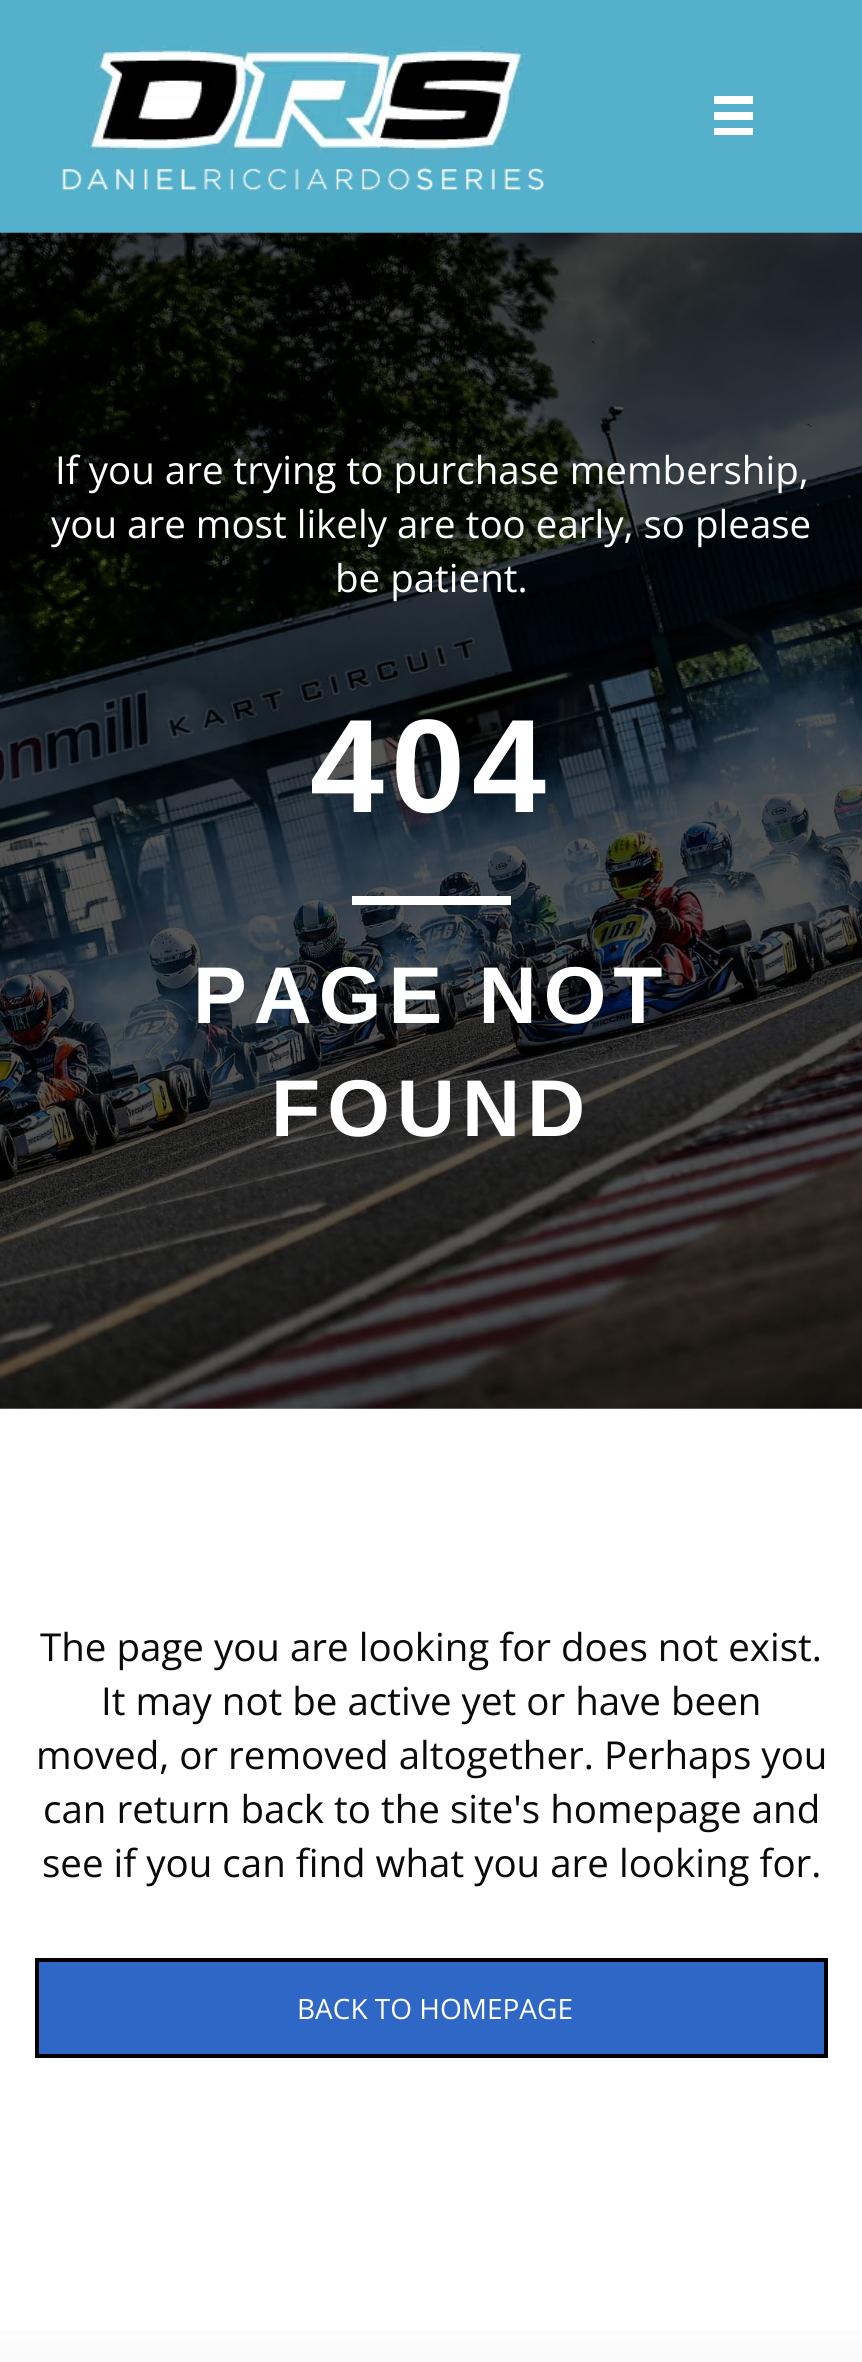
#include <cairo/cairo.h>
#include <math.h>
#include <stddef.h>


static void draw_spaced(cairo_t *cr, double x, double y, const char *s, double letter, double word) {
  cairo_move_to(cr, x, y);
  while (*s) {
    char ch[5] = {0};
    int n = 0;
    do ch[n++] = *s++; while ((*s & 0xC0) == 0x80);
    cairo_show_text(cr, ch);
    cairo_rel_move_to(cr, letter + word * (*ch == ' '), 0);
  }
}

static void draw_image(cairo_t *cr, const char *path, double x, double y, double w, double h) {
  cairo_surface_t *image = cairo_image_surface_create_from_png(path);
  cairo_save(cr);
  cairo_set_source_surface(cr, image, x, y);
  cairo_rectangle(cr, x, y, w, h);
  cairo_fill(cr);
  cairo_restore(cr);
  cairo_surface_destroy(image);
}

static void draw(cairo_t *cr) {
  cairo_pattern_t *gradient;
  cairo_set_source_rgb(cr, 1, 1, 1);
  cairo_paint(cr);
  cairo_set_source_rgb(cr, 85 / 255.0, 176 / 255.0, 203 / 255.0);
  cairo_rectangle(cr, 0, 0, 862, 233);
  cairo_fill(cr);
  draw_image(cr, "images/1.png", 62, 46, 482, 145);
  cairo_set_source_rgb(cr, 1, 1, 1);
  cairo_rectangle(cr, 714, 96, 39, 8);
  cairo_fill(cr);
  cairo_rectangle(cr, 714, 112, 39, 8);
  cairo_fill(cr);
  cairo_rectangle(cr, 714, 128, 39, 7);
  cairo_fill(cr);
  draw_image(cr, "images/2.png", 0, 232, 862, 1177);
  cairo_rectangle(cr, 352, 896, 159, 9);
  cairo_fill(cr);
  cairo_set_source_rgb(cr, 47 / 255.0, 103 / 255.0, 198 / 255.0);
  cairo_rectangle(cr, 37, 1960, 789, 96);
  cairo_fill_preserve(cr);
  cairo_set_source_rgb(cr, 0, 0, 0);
  cairo_set_line_width(cr, 4);
  cairo_stroke(cr);
  gradient = cairo_pattern_create_linear(431, 2303, 431, 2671);
  cairo_pattern_add_color_stop_rgba(gradient, 0, 1, 1, 1, 1);
  cairo_pattern_add_color_stop_rgba(gradient, 1, 221 / 255.0, 221 / 255.0, 221 / 255.0, 1);
  cairo_set_source(cr, gradient);
  cairo_pattern_destroy(gradient);
  cairo_rectangle(cr, 0, 2330, 862, 32);
  cairo_fill(cr);
  cairo_select_font_face(cr, "Open Sans", CAIRO_FONT_SLANT_NORMAL, CAIRO_FONT_WEIGHT_NORMAL);
  cairo_set_font_size(cr, 38.5);
  cairo_set_source_rgb(cr, 1, 1, 1);
  cairo_move_to(cr, 55, 484);
  cairo_show_text(cr, "If you are trying to purchase membership,");
  cairo_move_to(cr, 51, 538);
  cairo_show_text(cr, "you are most likely are too early, so please");
  cairo_move_to(cr, 335, 592);
  cairo_show_text(cr, "be patient.");
  cairo_select_font_face(cr, "Liberation Sans", CAIRO_FONT_SLANT_NORMAL, CAIRO_FONT_WEIGHT_BOLD);
  cairo_set_font_size(cr, 133);
  draw_spaced(cr, 310, 812, "404", 7, 0);
  cairo_set_font_size(cr, 80.5);
  draw_spaced(cr, 193, 1023, "PAGE NOT", 7, 0);
  draw_spaced(cr, 271, 1136, "FOUND", 7, 0);
  cairo_select_font_face(cr, "Open Sans", CAIRO_FONT_SLANT_NORMAL, CAIRO_FONT_WEIGHT_NORMAL);
  cairo_set_font_size(cr, 38.5);
  cairo_set_source_rgb(cr, 10 / 255.0, 10 / 255.0, 10 / 255.0);
  cairo_move_to(cr, 40, 1661);
  cairo_show_text(cr, "The page you are looking for does not exist.");
  cairo_move_to(cr, 101, 1715);
  cairo_show_text(cr, "It may not be active yet or have been");
  cairo_move_to(cr, 36, 1769);
  cairo_show_text(cr, "moved, or removed altogether. Perhaps you");
  cairo_move_to(cr, 43, 1823);
  cairo_show_text(cr, "can return back to the site's homepage and");
  cairo_move_to(cr, 42, 1877);
  cairo_show_text(cr, "see if you can find what you are looking for.");
  cairo_set_font_size(cr, 28);
  cairo_set_source_rgb(cr, 1, 1, 1);
  cairo_move_to(cr, 297, 2019);
  cairo_show_text(cr, "BACK TO HOMEPAGE");
}

int main(void) {
  cairo_surface_t *surface = cairo_image_surface_create(CAIRO_FORMAT_RGB24, 862, 2362);
  cairo_t *cr = cairo_create(surface);
  cairo_font_options_t *options = cairo_font_options_create();
  cairo_font_options_set_hint_metrics(options, CAIRO_HINT_METRICS_OFF);
  cairo_font_options_set_hint_style(options, CAIRO_HINT_STYLE_NONE);
  cairo_set_font_options(cr, options);
  cairo_set_miter_limit(cr, 4);
  draw(cr);
  cairo_surface_write_to_png(surface, "out.png");
  cairo_font_options_destroy(options);
  cairo_destroy(cr);
  cairo_surface_destroy(surface);
  return 0;
}
